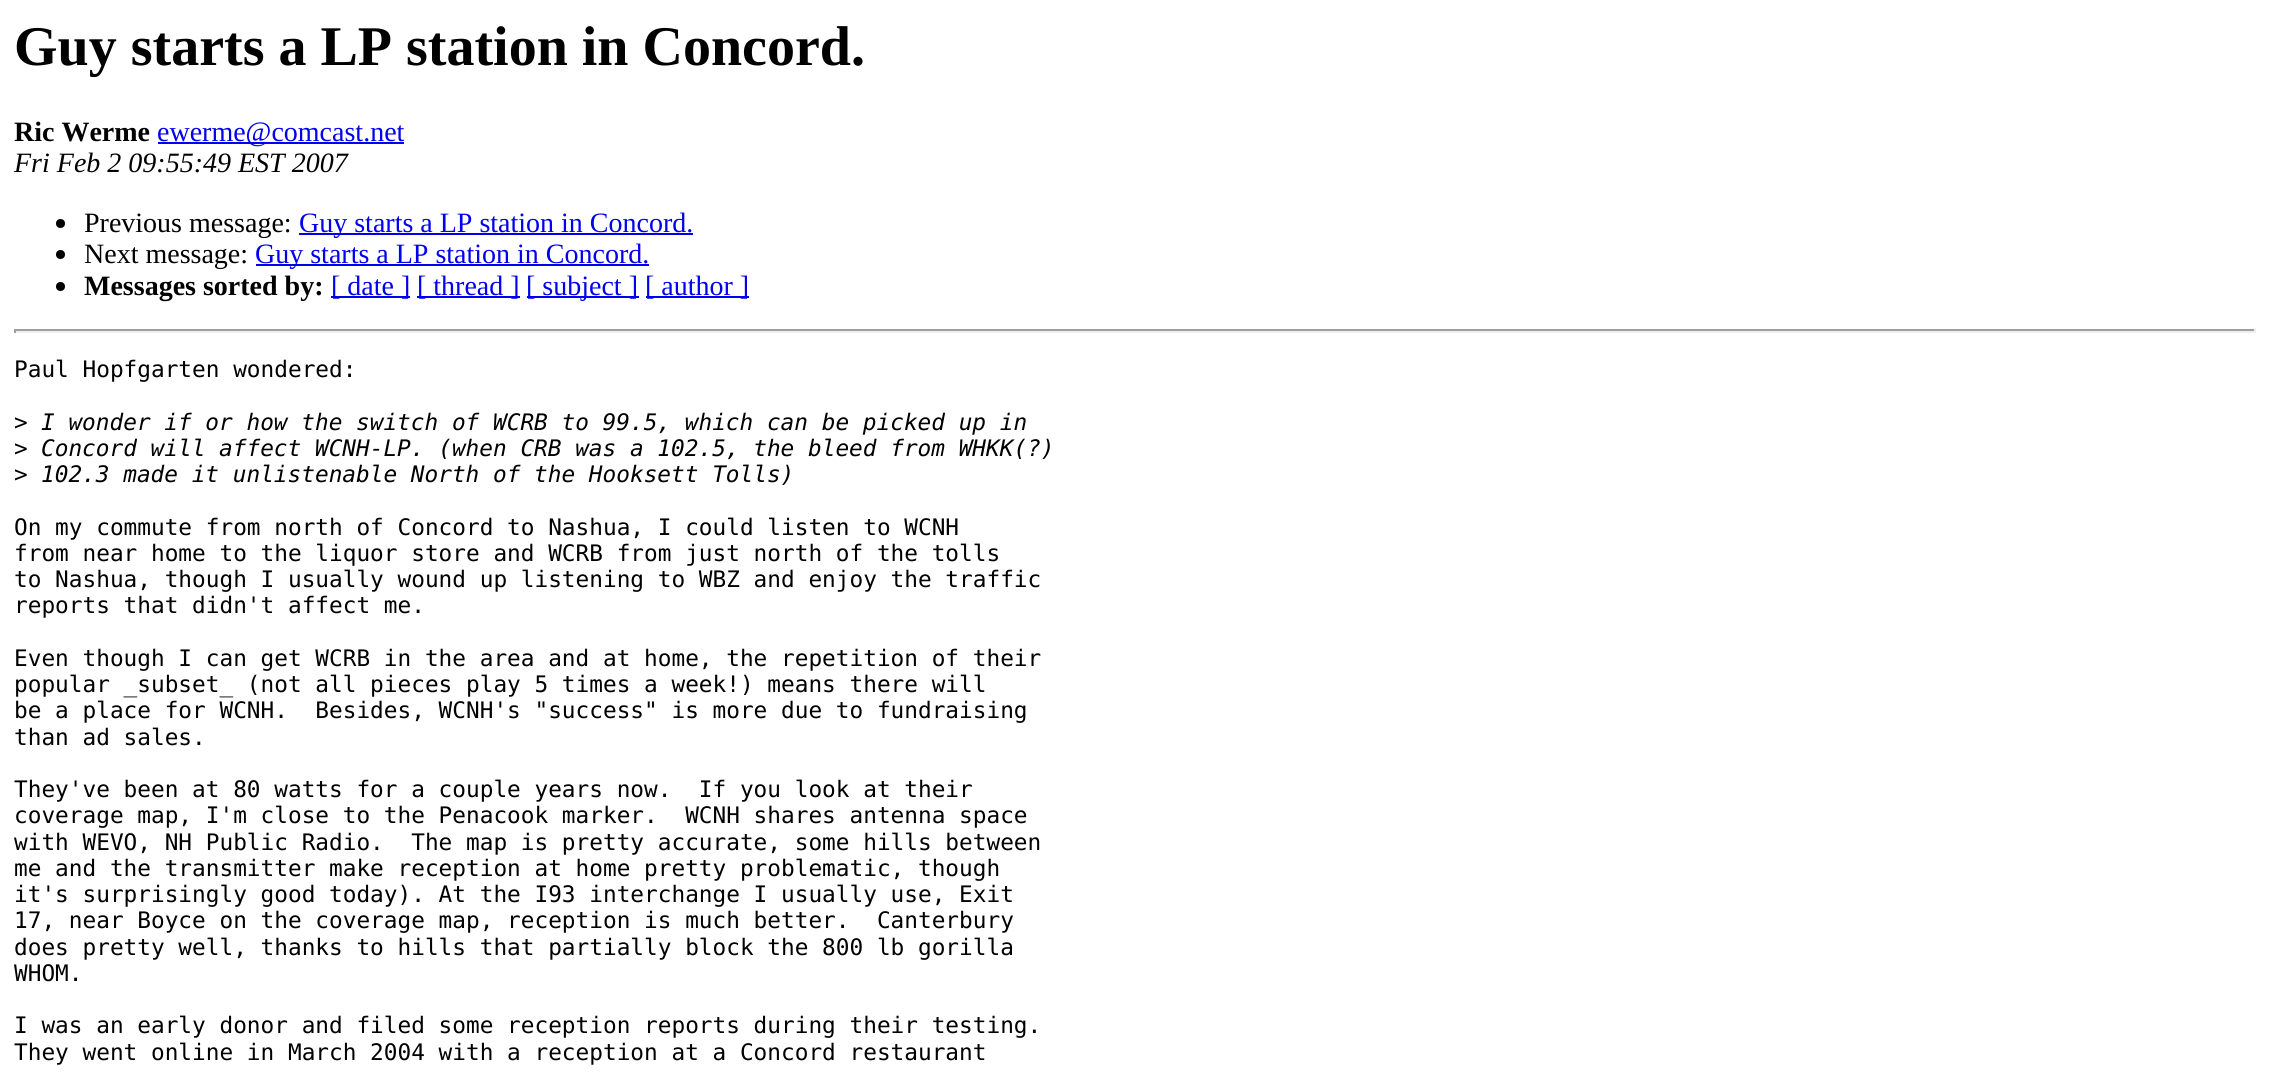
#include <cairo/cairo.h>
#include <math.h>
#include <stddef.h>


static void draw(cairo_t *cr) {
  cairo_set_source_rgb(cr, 1, 1, 1);
  cairo_paint(cr);
  cairo_set_source_rgb(cr, 0, 0, 238 / 255.0);
  cairo_rectangle(cr, 158, 142, 246, 2);
  cairo_fill(cr);
  cairo_set_source_rgb(cr, 0, 0, 0);
  cairo_arc(cr, 60.5, 223.5, 4.5, 0, 2 * M_PI);
  cairo_fill(cr);
  cairo_set_source_rgb(cr, 0, 0, 238 / 255.0);
  cairo_rectangle(cr, 299, 233, 394, 2);
  cairo_fill(cr);
  cairo_set_source_rgb(cr, 0, 0, 0);
  cairo_arc(cr, 60.5, 254.5, 4.5, 0, 2 * M_PI);
  cairo_fill(cr);
  cairo_set_source_rgb(cr, 0, 0, 238 / 255.0);
  cairo_rectangle(cr, 256, 264, 393, 2);
  cairo_fill(cr);
  cairo_set_source_rgb(cr, 0, 0, 0);
  cairo_arc(cr, 60.5, 286.5, 4.5, 0, 2 * M_PI);
  cairo_fill(cr);
  cairo_set_source_rgb(cr, 0, 0, 238 / 255.0);
  cairo_rectangle(cr, 331, 296, 79, 2);
  cairo_fill(cr);
  cairo_rectangle(cr, 417, 296, 103, 2);
  cairo_fill(cr);
  cairo_rectangle(cr, 527, 296, 112, 2);
  cairo_fill(cr);
  cairo_rectangle(cr, 646, 296, 103, 2);
  cairo_fill(cr);
  cairo_set_source_rgb(cr, 159 / 255.0, 159 / 255.0, 159 / 255.0);
  cairo_rectangle(cr, 14, 329, 2242, 2);
  cairo_fill(cr);
  cairo_set_source_rgb(cr, 238 / 255.0, 238 / 255.0, 238 / 255.0);
  cairo_rectangle(cr, 2254, 329, 2, 4);
  cairo_fill(cr);
  cairo_rectangle(cr, 14, 331, 2242, 2);
  cairo_fill(cr);
  cairo_set_source_rgb(cr, 159 / 255.0, 159 / 255.0, 159 / 255.0);
  cairo_rectangle(cr, 14, 329, 2, 4);
  cairo_fill(cr);
  cairo_select_font_face(cr, "Liberation Serif", CAIRO_FONT_SLANT_NORMAL, CAIRO_FONT_WEIGHT_BOLD);
  cairo_set_font_size(cr, 56);
  cairo_set_source_rgb(cr, 0, 0, 0);
  cairo_move_to(cr, 14, 65);
  cairo_show_text(cr, "Guy starts a LP station in Concord.");
  cairo_set_font_size(cr, 28);
  cairo_move_to(cr, 14, 141);
  cairo_show_text(cr, "Ric Werme");
  cairo_select_font_face(cr, "Liberation Serif", CAIRO_FONT_SLANT_NORMAL, CAIRO_FONT_WEIGHT_NORMAL);
  cairo_set_source_rgb(cr, 0, 0, 238 / 255.0);
  cairo_move_to(cr, 157, 141);
  cairo_show_text(cr, "ewerme@comcast.net");
  cairo_select_font_face(cr, "Liberation Serif", CAIRO_FONT_SLANT_ITALIC, CAIRO_FONT_WEIGHT_NORMAL);
  cairo_set_source_rgb(cr, 0, 0, 0);
  cairo_move_to(cr, 14, 172);
  cairo_show_text(cr, "Fri Feb 2 09:55:49 EST 2007");
  cairo_select_font_face(cr, "Liberation Serif", CAIRO_FONT_SLANT_NORMAL, CAIRO_FONT_WEIGHT_NORMAL);
  cairo_move_to(cr, 84, 232);
  cairo_show_text(cr, "Previous message:");
  cairo_set_source_rgb(cr, 0, 0, 238 / 255.0);
  cairo_move_to(cr, 299, 232);
  cairo_show_text(cr, "Guy starts a LP station in Concord.");
  cairo_set_source_rgb(cr, 0, 0, 0);
  cairo_move_to(cr, 84, 263);
  cairo_show_text(cr, "Next message:");
  cairo_set_source_rgb(cr, 0, 0, 238 / 255.0);
  cairo_move_to(cr, 255, 263);
  cairo_show_text(cr, "Guy starts a LP station in Concord.");
  cairo_select_font_face(cr, "Liberation Serif", CAIRO_FONT_SLANT_NORMAL, CAIRO_FONT_WEIGHT_BOLD);
  cairo_set_source_rgb(cr, 0, 0, 0);
  cairo_move_to(cr, 84, 295);
  cairo_show_text(cr, "Messages sorted by:");
  cairo_select_font_face(cr, "Liberation Serif", CAIRO_FONT_SLANT_NORMAL, CAIRO_FONT_WEIGHT_NORMAL);
  cairo_set_source_rgb(cr, 0, 0, 238 / 255.0);
  cairo_move_to(cr, 331, 295);
  cairo_show_text(cr, "[ date ]");
  cairo_move_to(cr, 417, 295);
  cairo_show_text(cr, "[ thread ]");
  cairo_move_to(cr, 526, 295);
  cairo_show_text(cr, "[ subject ]");
  cairo_move_to(cr, 645, 295);
  cairo_show_text(cr, "[ author ]");
  cairo_select_font_face(cr, "DejaVu Sans Mono", CAIRO_FONT_SLANT_NORMAL, CAIRO_FONT_WEIGHT_NORMAL);
  cairo_set_font_size(cr, 22.75);
  cairo_set_source_rgb(cr, 0, 0, 0);
  cairo_move_to(cr, 14, 377);
  cairo_show_text(cr, "Paul Hopfgarten wondered:");
  cairo_move_to(cr, 14, 430);
  cairo_show_text(cr, ">");
  cairo_select_font_face(cr, "DejaVu Sans Mono", CAIRO_FONT_SLANT_ITALIC, CAIRO_FONT_WEIGHT_NORMAL);
  cairo_move_to(cr, 41, 430);
  cairo_show_text(cr, "I wonder if or how the switch of WCRB to 99.5, which can be picked up in");
  cairo_select_font_face(cr, "DejaVu Sans Mono", CAIRO_FONT_SLANT_NORMAL, CAIRO_FONT_WEIGHT_NORMAL);
  cairo_move_to(cr, 14, 456);
  cairo_show_text(cr, ">");
  cairo_select_font_face(cr, "DejaVu Sans Mono", CAIRO_FONT_SLANT_ITALIC, CAIRO_FONT_WEIGHT_NORMAL);
  cairo_move_to(cr, 41, 456);
  cairo_show_text(cr, "Concord will affect WCNH-LP. (when CRB was a 102.5, the bleed from WHKK(?)");
  cairo_select_font_face(cr, "DejaVu Sans Mono", CAIRO_FONT_SLANT_NORMAL, CAIRO_FONT_WEIGHT_NORMAL);
  cairo_move_to(cr, 14, 482);
  cairo_show_text(cr, ">");
  cairo_select_font_face(cr, "DejaVu Sans Mono", CAIRO_FONT_SLANT_ITALIC, CAIRO_FONT_WEIGHT_NORMAL);
  cairo_move_to(cr, 41, 482);
  cairo_show_text(cr, "102.3 made it unlistenable North of the Hooksett Tolls)");
  cairo_select_font_face(cr, "DejaVu Sans Mono", CAIRO_FONT_SLANT_NORMAL, CAIRO_FONT_WEIGHT_NORMAL);
  cairo_move_to(cr, 14, 535);
  cairo_show_text(cr, "On my commute from north of Concord to Nashua, I could listen to WCNH");
  cairo_move_to(cr, 14, 561);
  cairo_show_text(cr, "from near home to the liquor store and WCRB from just north of the tolls");
  cairo_move_to(cr, 14, 587);
  cairo_show_text(cr, "to Nashua, though I usually wound up listening to WBZ and enjoy the traffic");
  cairo_move_to(cr, 14, 613);
  cairo_show_text(cr, "reports that didn't affect me.");
  cairo_move_to(cr, 14, 666);
  cairo_show_text(cr, "Even though I can get WCRB in the area and at home, the repetition of their");
  cairo_move_to(cr, 14, 692);
  cairo_show_text(cr, "popular _subset_ (not all pieces play 5 times a week!) means there will");
  cairo_move_to(cr, 14, 718);
  cairo_show_text(cr, "be a place for WCNH.  Besides, WCNH's \"success\" is more due to fundraising");
  cairo_move_to(cr, 14, 745);
  cairo_show_text(cr, "than ad sales.");
  cairo_move_to(cr, 14, 797);
  cairo_show_text(cr, "They've been at 80 watts for a couple years now.  If you look at their");
  cairo_move_to(cr, 14, 823);
  cairo_show_text(cr, "coverage map, I'm close to the Penacook marker.  WCNH shares antenna space");
  cairo_move_to(cr, 14, 850);
  cairo_show_text(cr, "with WEVO, NH Public Radio.  The map is pretty accurate, some hills between");
  cairo_move_to(cr, 14, 876);
  cairo_show_text(cr, "me and the transmitter make reception at home pretty problematic, though");
  cairo_move_to(cr, 14, 902);
  cairo_show_text(cr, "it's surprisingly good today). At the I93 interchange I usually use, Exit");
  cairo_move_to(cr, 14, 928);
  cairo_show_text(cr, "17, near Boyce on the coverage map, reception is much better.  Canterbury");
  cairo_move_to(cr, 14, 955);
  cairo_show_text(cr, "does pretty well, thanks to hills that partially block the 800 lb gorilla");
  cairo_move_to(cr, 14, 981);
  cairo_show_text(cr, "WHOM.");
  cairo_move_to(cr, 14, 1033);
  cairo_show_text(cr, "I was an early donor and filed some reception reports during their testing.");
  cairo_move_to(cr, 14, 1060);
  cairo_show_text(cr, "They went online in March 2004 with a reception at a Concord restaurant");
}

int main(void) {
  cairo_surface_t *surface = cairo_image_surface_create(CAIRO_FORMAT_RGB24, 2269, 1075);
  cairo_t *cr = cairo_create(surface);
  cairo_font_options_t *options = cairo_font_options_create();
  cairo_font_options_set_hint_metrics(options, CAIRO_HINT_METRICS_OFF);
  cairo_font_options_set_hint_style(options, CAIRO_HINT_STYLE_NONE);
  cairo_set_font_options(cr, options);
  cairo_set_miter_limit(cr, 4);
  draw(cr);
  cairo_surface_write_to_png(surface, "out.png");
  cairo_font_options_destroy(options);
  cairo_destroy(cr);
  cairo_surface_destroy(surface);
  return 0;
}
